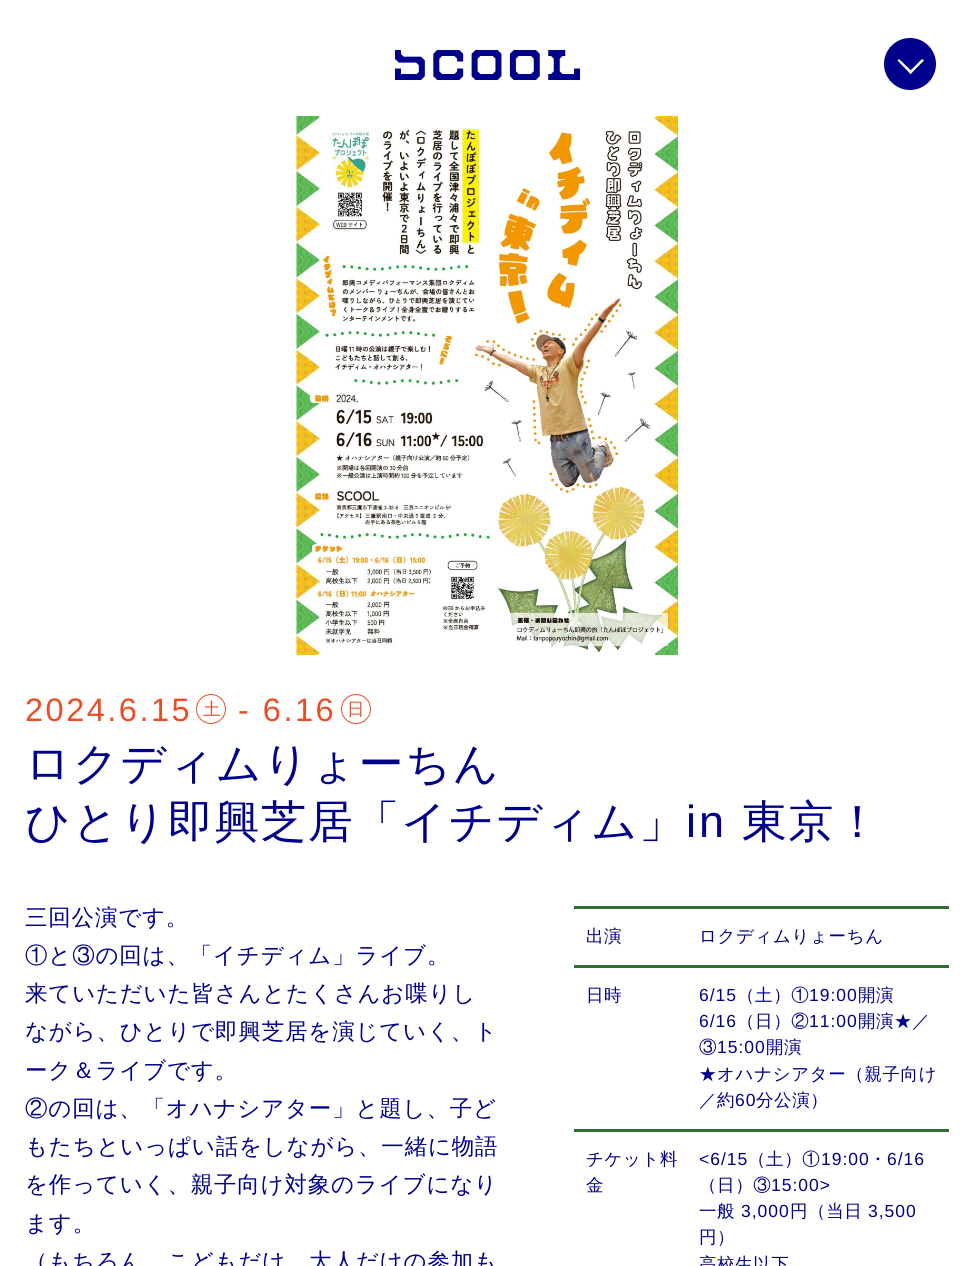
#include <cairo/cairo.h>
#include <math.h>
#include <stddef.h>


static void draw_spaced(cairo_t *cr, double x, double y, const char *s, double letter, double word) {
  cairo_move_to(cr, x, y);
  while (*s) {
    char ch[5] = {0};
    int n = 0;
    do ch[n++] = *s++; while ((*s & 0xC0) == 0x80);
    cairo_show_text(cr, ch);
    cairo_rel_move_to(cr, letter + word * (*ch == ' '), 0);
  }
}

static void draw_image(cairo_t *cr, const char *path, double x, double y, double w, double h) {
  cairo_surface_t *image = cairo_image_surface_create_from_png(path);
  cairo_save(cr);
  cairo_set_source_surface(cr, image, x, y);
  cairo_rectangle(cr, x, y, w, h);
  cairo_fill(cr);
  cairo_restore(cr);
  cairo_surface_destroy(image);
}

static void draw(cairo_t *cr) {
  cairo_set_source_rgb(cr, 1, 1, 1);
  cairo_paint(cr);
  draw_image(cr, "images/1.png", 395, 50, 185, 30);
  cairo_set_source_rgb(cr, 0, 0, 138 / 255.0);
  cairo_arc(cr, 910, 64, 26, 0, 2 * M_PI);
  cairo_fill(cr);
  cairo_set_source_rgb(cr, 1, 1, 1);
  cairo_new_path(cr);
  cairo_move_to(cr, 922, 59);
  cairo_line_to(cr, 924, 60.5);
  cairo_line_to(cr, 910.5, 74);
  cairo_line_to(cr, 909, 72);
  cairo_close_path(cr);
  cairo_fill(cr);
  cairo_new_path(cr);
  cairo_move_to(cr, 899, 59);
  cairo_line_to(cr, 912.5, 72);
  cairo_line_to(cr, 910.5, 74);
  cairo_line_to(cr, 897.5, 60.5);
  cairo_close_path(cr);
  cairo_fill(cr);
  draw_image(cr, "images/2.png", 296, 116, 382, 540);
  cairo_arc(cr, 211, 709, 14.5, 0, 2 * M_PI);
  cairo_set_source_rgb(cr, 235 / 255.0, 78 / 255.0, 39 / 255.0);
  cairo_set_line_width(cr, 1);
  cairo_stroke(cr);
  cairo_arc(cr, 356, 709, 14.5, 0, 2 * M_PI);
  cairo_stroke(cr);
  cairo_set_source_rgb(cr, 47 / 255.0, 110 / 255.0, 51 / 255.0);
  cairo_rectangle(cr, 574, 906, 375, 3);
  cairo_fill(cr);
  cairo_rectangle(cr, 574, 965, 375, 3);
  cairo_fill(cr);
  cairo_rectangle(cr, 574, 1129, 375, 3);
  cairo_fill(cr);
  cairo_select_font_face(cr, "Liberation Sans", CAIRO_FONT_SLANT_NORMAL, CAIRO_FONT_WEIGHT_NORMAL);
  cairo_set_font_size(cr, 32.5);
  cairo_set_source_rgb(cr, 235 / 255.0, 78 / 255.0, 39 / 255.0);
  draw_spaced(cr, 25, 721, "2024.6.15", 2.5, 0);
  cairo_select_font_face(cr, "WenQuanYi Zen Hei Medium", CAIRO_FONT_SLANT_NORMAL, CAIRO_FONT_WEIGHT_NORMAL);
  cairo_set_font_size(cr, 17.5);
  draw_spaced(cr, 203, 715, "土", 1, 0);
  cairo_select_font_face(cr, "Liberation Sans", CAIRO_FONT_SLANT_NORMAL, CAIRO_FONT_WEIGHT_NORMAL);
  cairo_set_font_size(cr, 32.5);
  draw_spaced(cr, 238, 721, "- 6.16", 2.5, 0);
  cairo_select_font_face(cr, "WenQuanYi Zen Hei Medium", CAIRO_FONT_SLANT_NORMAL, CAIRO_FONT_WEIGHT_NORMAL);
  cairo_set_font_size(cr, 17.5);
  draw_spaced(cr, 347, 715, "日", 1, 0);
  cairo_set_font_size(cr, 45);
  cairo_set_source_rgb(cr, 0, 0, 138 / 255.0);
  draw_spaced(cr, 25, 779, "ロクディムりょーちん", 1.6, 0);
  draw_spaced(cr, 25, 837, "ひとり即興芝居「イチディム」", 1.6, 0);
  cairo_select_font_face(cr, "Liberation Sans", CAIRO_FONT_SLANT_NORMAL, CAIRO_FONT_WEIGHT_NORMAL);
  draw_spaced(cr, 686, 837, "in", 3, 0);
  cairo_select_font_face(cr, "WenQuanYi Zen Hei Medium", CAIRO_FONT_SLANT_NORMAL, CAIRO_FONT_WEIGHT_NORMAL);
  draw_spaced(cr, 742, 837, "東京！", 1.5, 0);
  cairo_set_font_size(cr, 22.5);
  draw_spaced(cr, 25, 925, "三回公演です。", 0.8, 0);
  draw_spaced(cr, 25, 963, "①と③の回は、「イチディム」ライブ。", 0.8, 0);
  draw_spaced(cr, 25, 1001, "来ていただいた皆さんとたくさんお喋りし", 0.8, 0);
  draw_spaced(cr, 25, 1039, "ながら、ひとりで即興芝居を演じていく、ト", 0.8, 0);
  draw_spaced(cr, 25, 1078, "ーク＆ライブです。", 0.8, 0);
  draw_spaced(cr, 25, 1116, "②の回は、「オハナシアター」と題し、子ど", 0.8, 0);
  draw_spaced(cr, 25, 1154, "もたちといっぱい話をしながら、一緒に物語", 0.8, 0);
  draw_spaced(cr, 25, 1192, "を作っていく、親子向け対象のライブになり", 0.8, 0);
  draw_spaced(cr, 25, 1231, "ます。", 0.8, 0);
  draw_spaced(cr, 25, 1269, "（もちろん、こどもだけ、大人だけの参加も", 0.8, 0);
  cairo_set_font_size(cr, 17.5);
  draw_spaced(cr, 586, 942, "出演", 0.6, 0);
  draw_spaced(cr, 699, 942, "ロクディムりょーちん", 0.6, 0);
  draw_spaced(cr, 586, 1001, "日時", 0.6, 0);
  cairo_select_font_face(cr, "Liberation Sans", CAIRO_FONT_SLANT_NORMAL, CAIRO_FONT_WEIGHT_NORMAL);
  draw_spaced(cr, 699, 1001, "6/15", 1, 0);
  cairo_select_font_face(cr, "WenQuanYi Zen Hei Medium", CAIRO_FONT_SLANT_NORMAL, CAIRO_FONT_WEIGHT_NORMAL);
  draw_spaced(cr, 737, 1001, "（土）①", 0.6, 0);
  cairo_select_font_face(cr, "Liberation Sans", CAIRO_FONT_SLANT_NORMAL, CAIRO_FONT_WEIGHT_NORMAL);
  draw_spaced(cr, 809, 1001, "19:00", 1, 0);
  cairo_select_font_face(cr, "WenQuanYi Zen Hei Medium", CAIRO_FONT_SLANT_NORMAL, CAIRO_FONT_WEIGHT_NORMAL);
  draw_spaced(cr, 858, 1001, "開演", 0.6, 0);
  cairo_select_font_face(cr, "Liberation Sans", CAIRO_FONT_SLANT_NORMAL, CAIRO_FONT_WEIGHT_NORMAL);
  draw_spaced(cr, 699, 1027, "6/16", 1, 0);
  cairo_select_font_face(cr, "WenQuanYi Zen Hei Medium", CAIRO_FONT_SLANT_NORMAL, CAIRO_FONT_WEIGHT_NORMAL);
  draw_spaced(cr, 737, 1027, "（日）②", 0.6, 0);
  cairo_select_font_face(cr, "Liberation Sans", CAIRO_FONT_SLANT_NORMAL, CAIRO_FONT_WEIGHT_NORMAL);
  draw_spaced(cr, 809, 1027, "11:00", 1, 0);
  cairo_select_font_face(cr, "WenQuanYi Zen Hei Medium", CAIRO_FONT_SLANT_NORMAL, CAIRO_FONT_WEIGHT_NORMAL);
  draw_spaced(cr, 858, 1027, "開演★／", 0.6, 0);
  draw_spaced(cr, 699, 1053, "③", 0.6, 0);
  cairo_select_font_face(cr, "Liberation Sans", CAIRO_FONT_SLANT_NORMAL, CAIRO_FONT_WEIGHT_NORMAL);
  draw_spaced(cr, 717, 1053, "15:00", 1, 0);
  cairo_select_font_face(cr, "WenQuanYi Zen Hei Medium", CAIRO_FONT_SLANT_NORMAL, CAIRO_FONT_WEIGHT_NORMAL);
  draw_spaced(cr, 766, 1053, "開演", 0.6, 0);
  draw_spaced(cr, 699, 1080, "★オハナシアター（親子向け", 0.6, 0);
  draw_spaced(cr, 699, 1106, "／約", 0.6, 0);
  cairo_select_font_face(cr, "Liberation Sans", CAIRO_FONT_SLANT_NORMAL, CAIRO_FONT_WEIGHT_NORMAL);
  draw_spaced(cr, 735, 1106, "60", 1, 0);
  cairo_select_font_face(cr, "WenQuanYi Zen Hei Medium", CAIRO_FONT_SLANT_NORMAL, CAIRO_FONT_WEIGHT_NORMAL);
  draw_spaced(cr, 756, 1106, "分公演）", 0.6, 0);
  draw_spaced(cr, 586, 1165, "チケット料", 0.6, 0);
  draw_spaced(cr, 586, 1191, "金", 0.6, 0);
  cairo_select_font_face(cr, "Liberation Sans", CAIRO_FONT_SLANT_NORMAL, CAIRO_FONT_WEIGHT_NORMAL);
  draw_spaced(cr, 699, 1165, "<6/15", 1, 0);
  cairo_select_font_face(cr, "WenQuanYi Zen Hei Medium", CAIRO_FONT_SLANT_NORMAL, CAIRO_FONT_WEIGHT_NORMAL);
  draw_spaced(cr, 748, 1165, "（土）①", 0.6, 0);
  cairo_select_font_face(cr, "Liberation Sans", CAIRO_FONT_SLANT_NORMAL, CAIRO_FONT_WEIGHT_NORMAL);
  draw_spaced(cr, 821, 1165, "19:00", 1, 0);
  cairo_select_font_face(cr, "WenQuanYi Zen Hei Medium", CAIRO_FONT_SLANT_NORMAL, CAIRO_FONT_WEIGHT_NORMAL);
  draw_spaced(cr, 869, 1165, "・", 0.6, 0);
  cairo_select_font_face(cr, "Liberation Sans", CAIRO_FONT_SLANT_NORMAL, CAIRO_FONT_WEIGHT_NORMAL);
  draw_spaced(cr, 887, 1165, "6/16", 1, 0);
  cairo_select_font_face(cr, "WenQuanYi Zen Hei Medium", CAIRO_FONT_SLANT_NORMAL, CAIRO_FONT_WEIGHT_NORMAL);
  draw_spaced(cr, 699, 1191, "（日）③", 0.6, 0);
  cairo_select_font_face(cr, "Liberation Sans", CAIRO_FONT_SLANT_NORMAL, CAIRO_FONT_WEIGHT_NORMAL);
  draw_spaced(cr, 771, 1191, "15:00>", 1, 0);
  cairo_select_font_face(cr, "WenQuanYi Zen Hei Medium", CAIRO_FONT_SLANT_NORMAL, CAIRO_FONT_WEIGHT_NORMAL);
  draw_spaced(cr, 699, 1217, "一般", 0.6, 0);
  cairo_select_font_face(cr, "Liberation Sans", CAIRO_FONT_SLANT_NORMAL, CAIRO_FONT_WEIGHT_NORMAL);
  draw_spaced(cr, 741, 1217, "3,000", 1, 0);
  cairo_select_font_face(cr, "WenQuanYi Zen Hei Medium", CAIRO_FONT_SLANT_NORMAL, CAIRO_FONT_WEIGHT_NORMAL);
  draw_spaced(cr, 790, 1217, "円（当日", 0.6, 0);
  cairo_select_font_face(cr, "Liberation Sans", CAIRO_FONT_SLANT_NORMAL, CAIRO_FONT_WEIGHT_NORMAL);
  draw_spaced(cr, 868, 1217, "3,500", 1, 0);
  cairo_select_font_face(cr, "WenQuanYi Zen Hei Medium", CAIRO_FONT_SLANT_NORMAL, CAIRO_FONT_WEIGHT_NORMAL);
  draw_spaced(cr, 699, 1243, "円）", 0.6, 0);
  draw_spaced(cr, 699, 1270, "高校生以下", 0.6, 0);
}

int main(void) {
  cairo_surface_t *surface = cairo_image_surface_create(CAIRO_FORMAT_RGB24, 973, 1266);
  cairo_t *cr = cairo_create(surface);
  cairo_font_options_t *options = cairo_font_options_create();
  cairo_font_options_set_hint_metrics(options, CAIRO_HINT_METRICS_OFF);
  cairo_font_options_set_hint_style(options, CAIRO_HINT_STYLE_NONE);
  cairo_set_font_options(cr, options);
  cairo_set_miter_limit(cr, 4);
  draw(cr);
  cairo_surface_write_to_png(surface, "out.png");
  cairo_font_options_destroy(options);
  cairo_destroy(cr);
  cairo_surface_destroy(surface);
  return 0;
}
